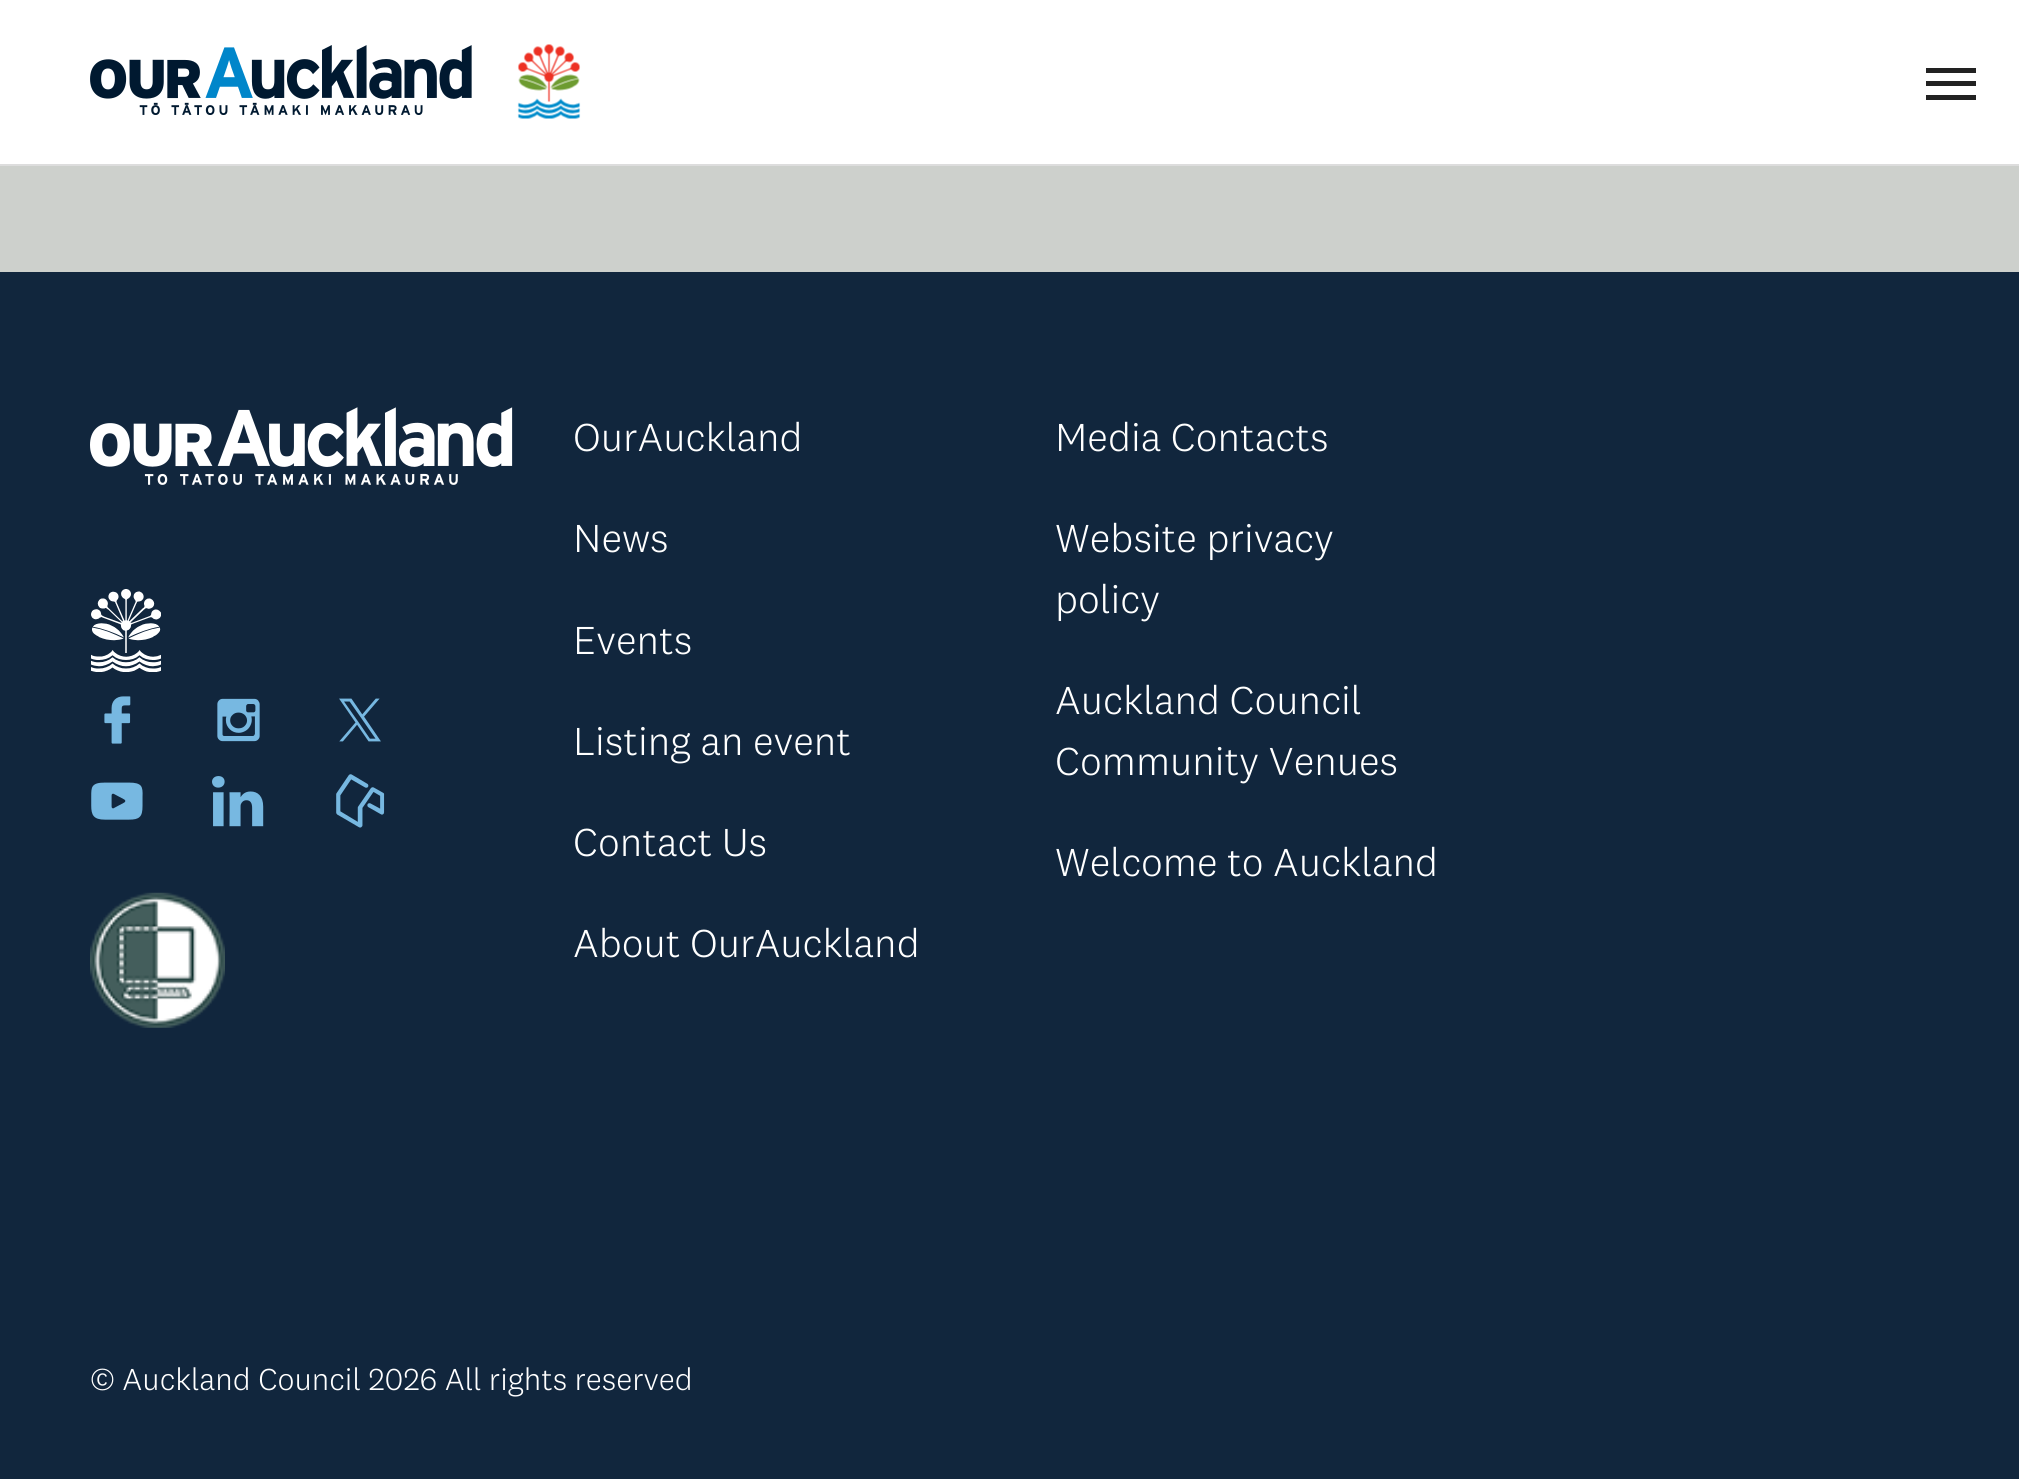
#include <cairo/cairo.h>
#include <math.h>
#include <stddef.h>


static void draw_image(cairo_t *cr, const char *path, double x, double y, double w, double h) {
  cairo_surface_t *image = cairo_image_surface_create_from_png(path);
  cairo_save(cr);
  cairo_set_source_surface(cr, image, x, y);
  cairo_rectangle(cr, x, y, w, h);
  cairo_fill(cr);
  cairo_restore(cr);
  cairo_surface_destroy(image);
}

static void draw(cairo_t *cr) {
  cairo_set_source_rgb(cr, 17 / 255.0, 38 / 255.0, 61 / 255.0);
  cairo_paint(cr);
  cairo_set_source_rgb(cr, 221 / 255.0, 221 / 255.0, 221 / 255.0);
  cairo_rectangle(cr, 0, 164, 2019, 2);
  cairo_fill(cr);
  cairo_set_source_rgb(cr, 1, 1, 1);
  cairo_rectangle(cr, 0, 0, 2019, 164);
  cairo_fill(cr);
  draw_image(cr, "images/1.png", 90, 45, 382, 70);
  draw_image(cr, "images/2.png", 517, 44, 64, 75);
  cairo_set_source_rgb(cr, 34 / 255.0, 34 / 255.0, 34 / 255.0);
  cairo_rectangle(cr, 1926, 81, 50, 5);
  cairo_fill(cr);
  cairo_rectangle(cr, 1926, 68, 50, 5);
  cairo_fill(cr);
  cairo_rectangle(cr, 1926, 95, 50, 5);
  cairo_fill(cr);
  cairo_set_source_rgb(cr, 205 / 255.0, 208 / 255.0, 204 / 255.0);
  cairo_rectangle(cr, 0, 166, 2019, 106);
  cairo_fill(cr);
  draw_image(cr, "images/3.png", 90, 407, 423, 78);
  draw_image(cr, "images/4.png", 91, 589, 70, 83);
  draw_image(cr, "images/5.png", 104, 696, 27, 48);
  draw_image(cr, "images/6.png", 217, 698, 43, 44);
  draw_image(cr, "images/7.png", 339, 698, 42, 44);
  draw_image(cr, "images/8.png", 91, 782, 52, 38);
  draw_image(cr, "images/9.png", 212, 776, 52, 51);
  draw_image(cr, "images/10.png", 336, 774, 49, 54);
  draw_image(cr, "images/11.png", 90, 892, 135, 136);
  cairo_select_font_face(cr, "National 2 Light", CAIRO_FONT_SLANT_NORMAL, CAIRO_FONT_WEIGHT_NORMAL);
  cairo_set_font_size(cr, 40.5);
  cairo_set_source_rgb(cr, 1, 1, 1);
  cairo_move_to(cr, 573, 451);
  cairo_show_text(cr, "OurAuckland");
  cairo_move_to(cr, 1055, 451);
  cairo_show_text(cr, "Media Contacts");
  cairo_move_to(cr, 573, 552);
  cairo_show_text(cr, "News");
  cairo_move_to(cr, 1055, 552);
  cairo_show_text(cr, "Website privacy");
  cairo_move_to(cr, 1055, 613);
  cairo_show_text(cr, "policy");
  cairo_move_to(cr, 573, 654);
  cairo_show_text(cr, "Events");
  cairo_move_to(cr, 573, 755);
  cairo_show_text(cr, "Listing an event");
  cairo_move_to(cr, 1055, 714);
  cairo_show_text(cr, "Auckland Council");
  cairo_move_to(cr, 1055, 775);
  cairo_show_text(cr, "Community Venues");
  cairo_move_to(cr, 573, 856);
  cairo_show_text(cr, "Contact Us");
  cairo_move_to(cr, 1055, 876);
  cairo_show_text(cr, "Welcome to Auckland");
  cairo_move_to(cr, 573, 957);
  cairo_show_text(cr, "About OurAuckland");
  cairo_set_font_size(cr, 31.5);
  cairo_move_to(cr, 90, 1390);
  cairo_show_text(cr, "© Auckland Council 2026 All rights reserved");
}

int main(void) {
  cairo_surface_t *surface = cairo_image_surface_create(CAIRO_FORMAT_RGB24, 2019, 1479);
  cairo_t *cr = cairo_create(surface);
  cairo_font_options_t *options = cairo_font_options_create();
  cairo_font_options_set_hint_metrics(options, CAIRO_HINT_METRICS_OFF);
  cairo_font_options_set_hint_style(options, CAIRO_HINT_STYLE_NONE);
  cairo_set_font_options(cr, options);
  cairo_set_miter_limit(cr, 4);
  draw(cr);
  cairo_surface_write_to_png(surface, "out.png");
  cairo_font_options_destroy(options);
  cairo_destroy(cr);
  cairo_surface_destroy(surface);
  return 0;
}
